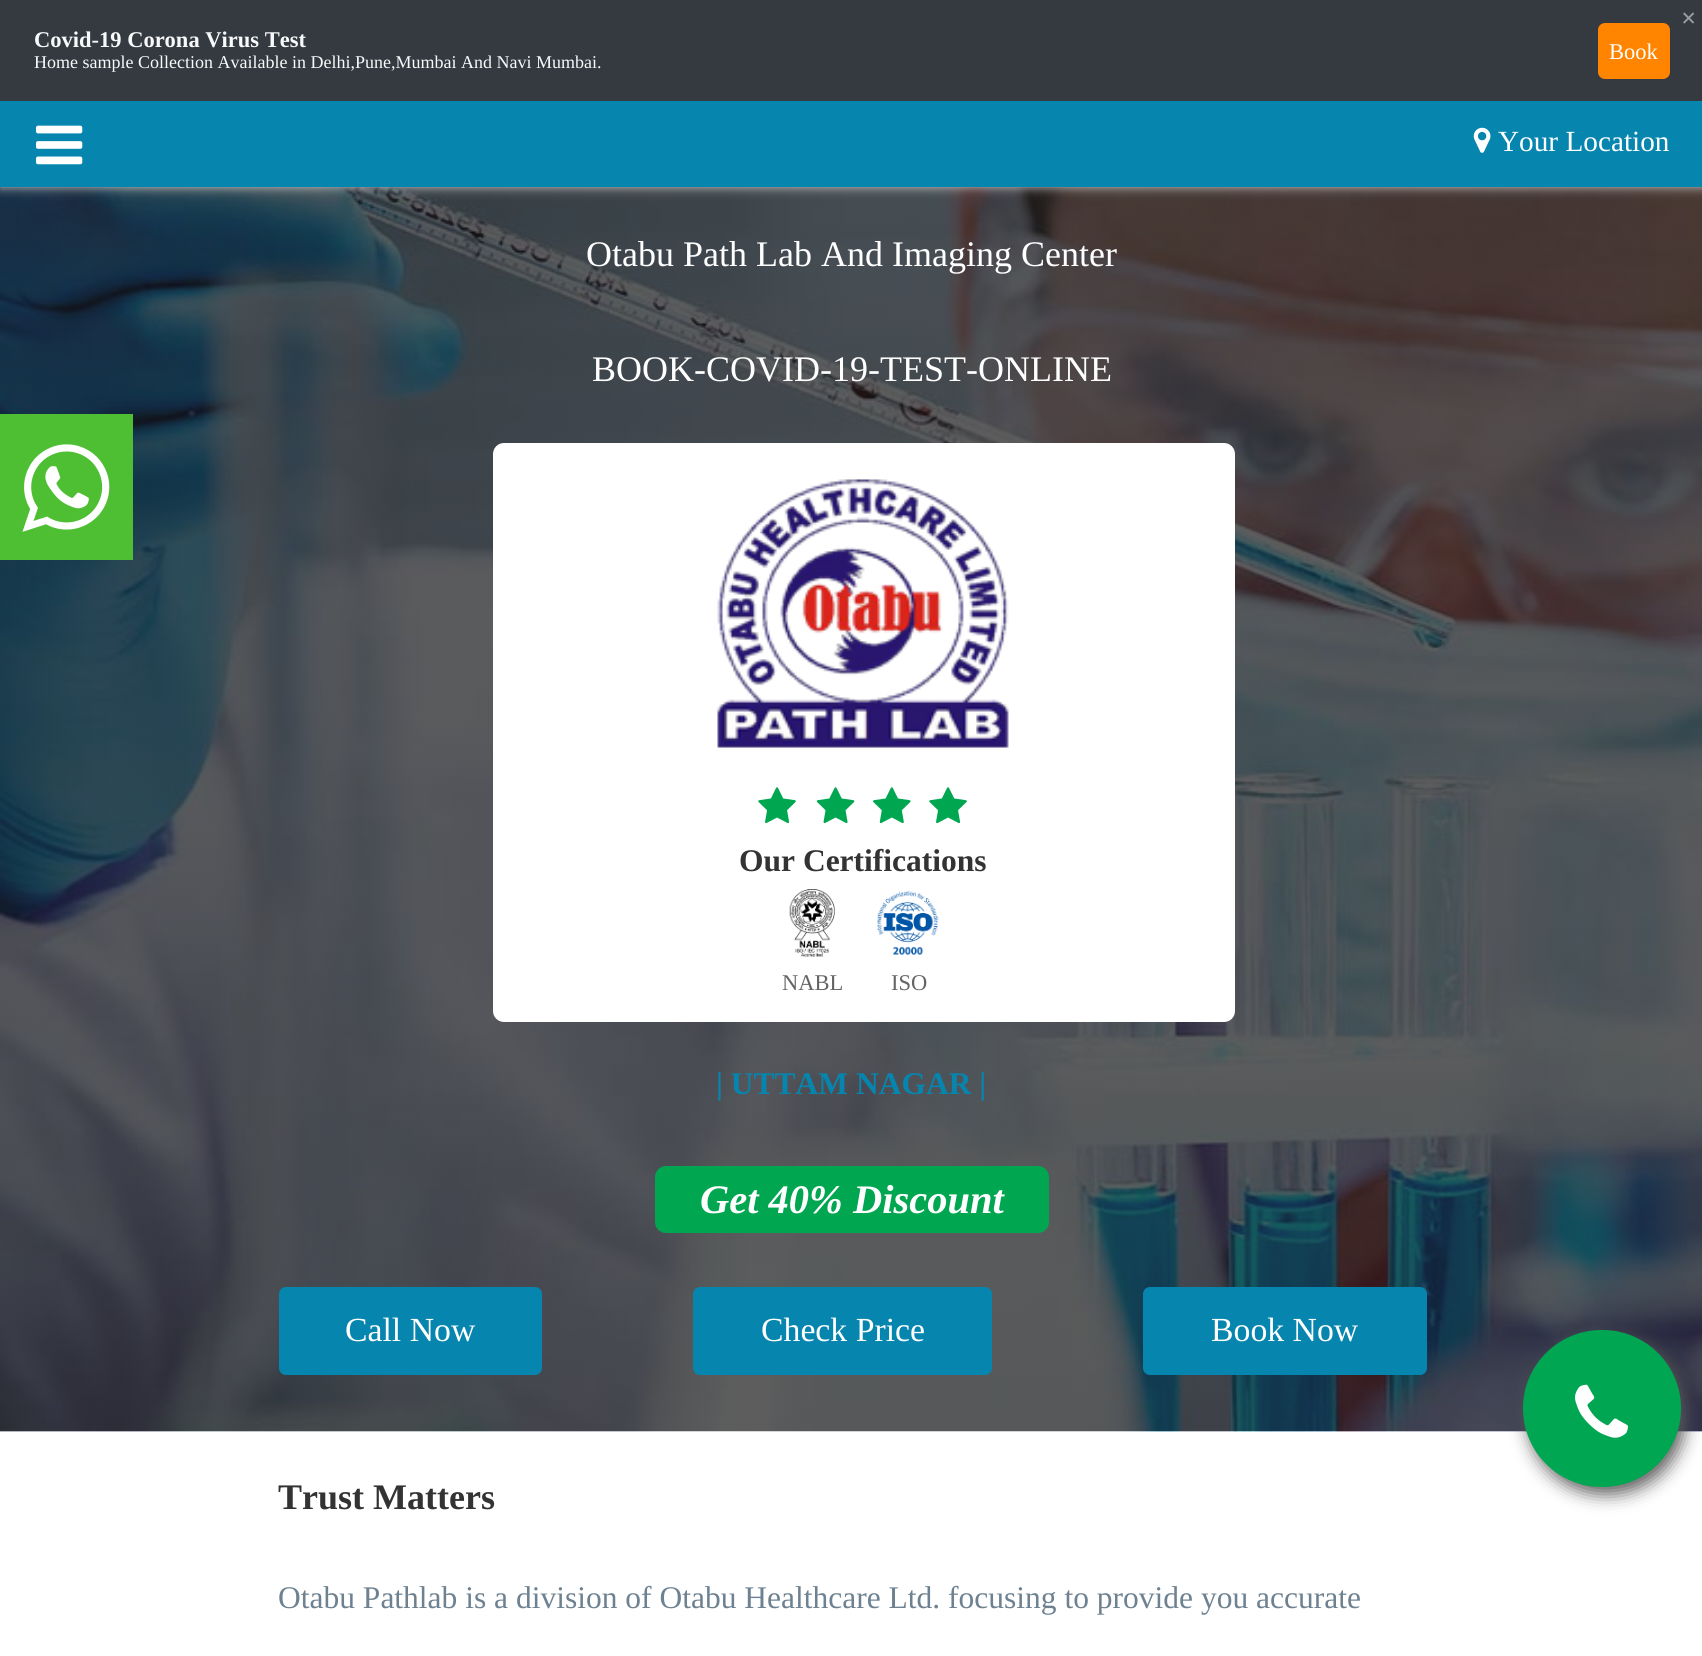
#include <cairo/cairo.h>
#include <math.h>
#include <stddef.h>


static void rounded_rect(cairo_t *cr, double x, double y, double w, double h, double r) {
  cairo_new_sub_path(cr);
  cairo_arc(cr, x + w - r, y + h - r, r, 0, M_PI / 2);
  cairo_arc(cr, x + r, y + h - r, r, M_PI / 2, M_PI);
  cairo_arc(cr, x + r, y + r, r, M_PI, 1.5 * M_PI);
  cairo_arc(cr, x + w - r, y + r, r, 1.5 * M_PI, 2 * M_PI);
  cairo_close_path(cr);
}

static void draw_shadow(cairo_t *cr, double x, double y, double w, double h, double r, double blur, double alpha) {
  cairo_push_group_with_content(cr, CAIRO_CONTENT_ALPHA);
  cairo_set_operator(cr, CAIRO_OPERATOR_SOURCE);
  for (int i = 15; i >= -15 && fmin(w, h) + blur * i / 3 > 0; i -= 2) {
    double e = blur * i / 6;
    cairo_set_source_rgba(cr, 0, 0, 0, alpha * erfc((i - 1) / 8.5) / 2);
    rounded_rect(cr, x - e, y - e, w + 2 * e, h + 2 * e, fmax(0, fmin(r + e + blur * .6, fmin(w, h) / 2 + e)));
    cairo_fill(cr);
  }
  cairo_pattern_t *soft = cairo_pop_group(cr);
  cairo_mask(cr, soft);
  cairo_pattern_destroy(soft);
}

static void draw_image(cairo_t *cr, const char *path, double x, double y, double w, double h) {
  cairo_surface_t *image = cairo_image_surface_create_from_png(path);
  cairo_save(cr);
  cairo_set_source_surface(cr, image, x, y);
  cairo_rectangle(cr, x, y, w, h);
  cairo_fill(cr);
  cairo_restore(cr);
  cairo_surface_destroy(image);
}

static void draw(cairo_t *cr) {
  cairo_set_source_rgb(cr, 1, 1, 1);
  cairo_paint(cr);
  draw_image(cr, "images/4.png", 0, 187, 1702, 1245);
  cairo_set_source_rgb(cr, 204 / 255.0, 204 / 255.0, 204 / 255.0);
  draw_shadow(cr, 0, 0, 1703, 187, 0, 5.5, 1);
  cairo_set_source_rgb(cr, 52 / 255.0, 58 / 255.0, 64 / 255.0);
  cairo_rectangle(cr, 0, 0, 1702, 101);
  cairo_fill(cr);
  cairo_set_source_rgb(cr, 1, 132 / 255.0, 0);
  rounded_rect(cr, 1598, 23, 72, 56, 7);
  cairo_fill(cr);
  cairo_set_source_rgb(cr, 6 / 255.0, 133 / 255.0, 175 / 255.0);
  cairo_rectangle(cr, 0, 101, 1702, 86);
  cairo_fill(cr);
  draw_image(cr, "images/1.png", 36, 125, 47, 40);
  draw_image(cr, "images/2.png", 1473, 127, 18, 26);
  cairo_set_source_rgb(cr, 78 / 255.0, 191 / 255.0, 51 / 255.0);
  cairo_rectangle(cr, 0, 414, 133, 146);
  cairo_fill(cr);
  draw_image(cr, "images/3.png", 22, 444, 88, 88);
  cairo_set_source_rgb(cr, 1, 1, 1);
  rounded_rect(cr, 493, 443, 742, 579, 11);
  cairo_fill(cr);
  draw_image(cr, "images/5.png", 717, 479, 292, 269);
  draw_image(cr, "images/6.png", 758, 787, 38, 37);
  draw_image(cr, "images/7.png", 816, 787, 39, 37);
  draw_image(cr, "images/8.png", 873, 787, 38, 37);
  draw_image(cr, "images/6.png", 929, 787, 38, 37);
  draw_image(cr, "images/9.png", 789, 889, 46, 68);
  draw_image(cr, "images/10.png", 877, 891, 62, 64);
  cairo_set_source_rgb(cr, 0, 166 / 255.0, 80 / 255.0);
  rounded_rect(cr, 655, 1166, 394, 67, 11);
  cairo_fill(cr);
  cairo_set_source_rgb(cr, 6 / 255.0, 133 / 255.0, 175 / 255.0);
  rounded_rect(cr, 279, 1287, 263, 88, 7);
  cairo_fill(cr);
  rounded_rect(cr, 693, 1287, 299, 88, 7);
  cairo_fill(cr);
  rounded_rect(cr, 1143, 1287, 284, 88, 7);
  cairo_fill(cr);
  cairo_set_source_rgb(cr, 90 / 255.0, 89 / 255.0, 89 / 255.0);
  draw_shadow(cr, 1528, 1337, 157, 157, 78.5, 9, 1);
  cairo_set_source_rgb(cr, 0, 166 / 255.0, 81 / 255.0);
  rounded_rect(cr, 1523, 1330, 158, 157, 78.5);
  cairo_fill(cr);
  draw_image(cr, "images/11.png", 1575, 1384, 53, 54);
  cairo_select_font_face(cr, "Liberation Serif", CAIRO_FONT_SLANT_NORMAL, CAIRO_FONT_WEIGHT_BOLD);
  cairo_set_font_size(cr, 27);
  cairo_set_source_rgb(cr, 154 / 255.0, 157 / 255.0, 160 / 255.0);
  cairo_move_to(cr, 1681, 27);
  cairo_show_text(cr, "×");
  cairo_set_font_size(cr, 22.5);
  cairo_set_source_rgb(cr, 248 / 255.0, 249 / 255.0, 250 / 255.0);
  cairo_move_to(cr, 34, 47);
  cairo_show_text(cr, "Covid-19 Corona Virus Test");
  cairo_select_font_face(cr, "Liberation Serif", CAIRO_FONT_SLANT_NORMAL, CAIRO_FONT_WEIGHT_NORMAL);
  cairo_set_font_size(cr, 18);
  cairo_move_to(cr, 34, 68);
  cairo_show_text(cr, "Home sample Collection Available in Delhi,Pune,Mumbai And Navi Mumbai.");
  cairo_set_font_size(cr, 22.5);
  cairo_set_source_rgb(cr, 1, 1, 1);
  cairo_move_to(cr, 1609, 59);
  cairo_show_text(cr, "Book");
  cairo_set_font_size(cr, 29.25);
  cairo_move_to(cr, 1498, 151);
  cairo_show_text(cr, "Your Location");
  cairo_set_font_size(cr, 36);
  cairo_move_to(cr, 586, 266);
  cairo_show_text(cr, "Otabu Path Lab And Imaging Center");
  cairo_move_to(cr, 592, 381);
  cairo_show_text(cr, "BOOK-COVID-19-TEST-ONLINE");
  cairo_select_font_face(cr, "Liberation Serif", CAIRO_FONT_SLANT_NORMAL, CAIRO_FONT_WEIGHT_BOLD);
  cairo_set_font_size(cr, 31.5);
  cairo_set_source_rgb(cr, 51 / 255.0, 51 / 255.0, 51 / 255.0);
  cairo_move_to(cr, 739, 871);
  cairo_show_text(cr, "Our Certifications");
  cairo_select_font_face(cr, "Liberation Serif", CAIRO_FONT_SLANT_NORMAL, CAIRO_FONT_WEIGHT_NORMAL);
  cairo_set_font_size(cr, 22.5);
  cairo_set_source_rgb(cr, 100 / 255.0, 100 / 255.0, 100 / 255.0);
  cairo_move_to(cr, 782, 990);
  cairo_show_text(cr, "NABL");
  cairo_move_to(cr, 891, 990);
  cairo_show_text(cr, "ISO");
  cairo_select_font_face(cr, "Liberation Serif", CAIRO_FONT_SLANT_NORMAL, CAIRO_FONT_WEIGHT_BOLD);
  cairo_set_font_size(cr, 31.5);
  cairo_set_source_rgb(cr, 6 / 255.0, 133 / 255.0, 175 / 255.0);
  cairo_move_to(cr, 716, 1094);
  cairo_show_text(cr, "| UTTAM NAGAR |");
  cairo_select_font_face(cr, "Liberation Serif", CAIRO_FONT_SLANT_ITALIC, CAIRO_FONT_WEIGHT_BOLD);
  cairo_set_font_size(cr, 40.5);
  cairo_set_source_rgb(cr, 1, 1, 1);
  cairo_move_to(cr, 700, 1213);
  cairo_show_text(cr, "Get 40% Discount");
  cairo_select_font_face(cr, "Liberation Serif", CAIRO_FONT_SLANT_NORMAL, CAIRO_FONT_WEIGHT_NORMAL);
  cairo_set_font_size(cr, 33.75);
  cairo_move_to(cr, 345, 1341);
  cairo_show_text(cr, "Call Now");
  cairo_move_to(cr, 761, 1341);
  cairo_show_text(cr, "Check Price");
  cairo_move_to(cr, 1211, 1341);
  cairo_show_text(cr, "Book Now");
  cairo_select_font_face(cr, "Liberation Serif", CAIRO_FONT_SLANT_NORMAL, CAIRO_FONT_WEIGHT_BOLD);
  cairo_set_font_size(cr, 36);
  cairo_set_source_rgb(cr, 51 / 255.0, 51 / 255.0, 51 / 255.0);
  cairo_move_to(cr, 278, 1509);
  cairo_show_text(cr, "Trust Matters");
  cairo_select_font_face(cr, "Liberation Serif", CAIRO_FONT_SLANT_NORMAL, CAIRO_FONT_WEIGHT_NORMAL);
  cairo_set_font_size(cr, 31.5);
  cairo_set_source_rgb(cr, 109 / 255.0, 129 / 255.0, 144 / 255.0);
  cairo_move_to(cr, 278, 1608);
  cairo_show_text(cr, "Otabu Pathlab is a division of Otabu Healthcare Ltd. focusing to provide you accurate");
}

int main(void) {
  cairo_surface_t *surface = cairo_image_surface_create(CAIRO_FORMAT_RGB24, 1702, 1656);
  cairo_t *cr = cairo_create(surface);
  cairo_font_options_t *options = cairo_font_options_create();
  cairo_font_options_set_hint_metrics(options, CAIRO_HINT_METRICS_OFF);
  cairo_font_options_set_hint_style(options, CAIRO_HINT_STYLE_NONE);
  cairo_set_font_options(cr, options);
  cairo_set_miter_limit(cr, 4);
  draw(cr);
  cairo_surface_write_to_png(surface, "out.png");
  cairo_font_options_destroy(options);
  cairo_destroy(cr);
  cairo_surface_destroy(surface);
  return 0;
}
